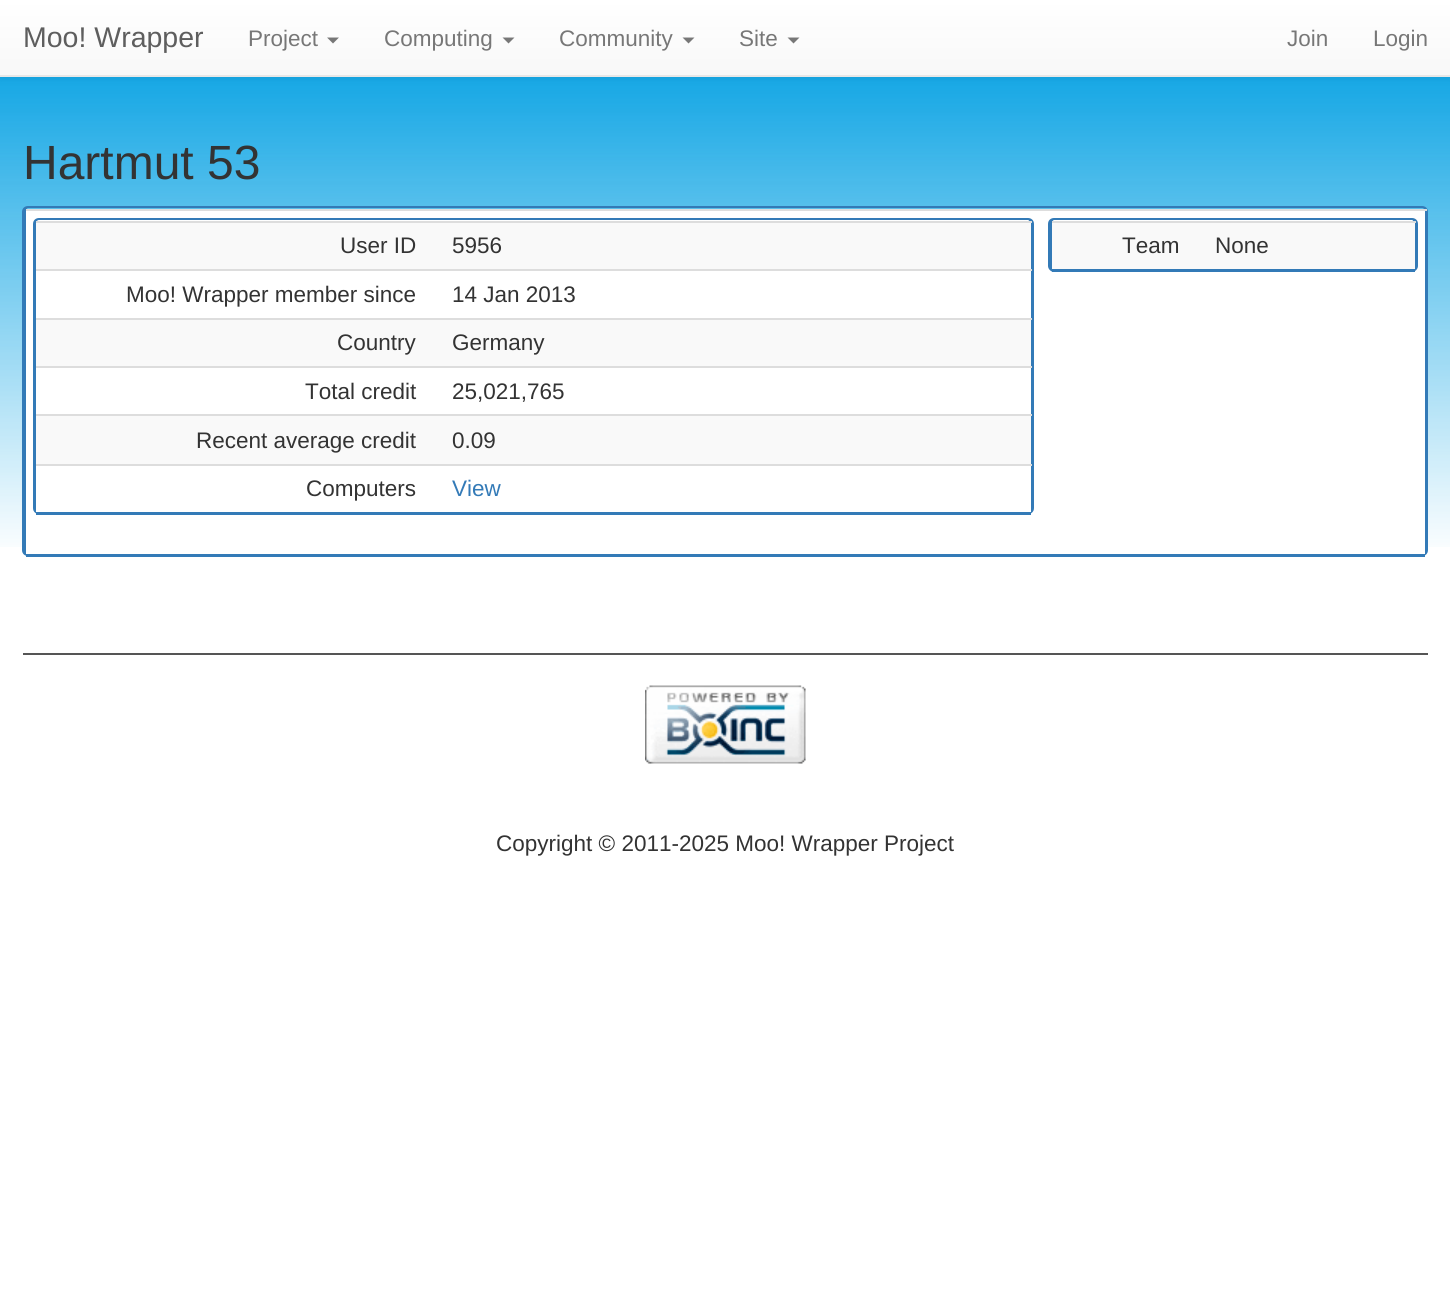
#include <cairo/cairo.h>
#include <math.h>
#include <stddef.h>


static void rounded_rect(cairo_t *cr, double x, double y, double w, double h, double r) {
  cairo_new_sub_path(cr);
  cairo_arc(cr, x + w - r, y + h - r, r, 0, M_PI / 2);
  cairo_arc(cr, x + r, y + h - r, r, M_PI / 2, M_PI);
  cairo_arc(cr, x + r, y + r, r, M_PI, 1.5 * M_PI);
  cairo_arc(cr, x + w - r, y + r, r, 1.5 * M_PI, 2 * M_PI);
  cairo_close_path(cr);
}

static void draw_shadow(cairo_t *cr, double x, double y, double w, double h, double r, double blur, double alpha) {
  cairo_push_group_with_content(cr, CAIRO_CONTENT_ALPHA);
  cairo_set_operator(cr, CAIRO_OPERATOR_SOURCE);
  for (int i = 15; i >= -15 && fmin(w, h) + blur * i / 3 > 0; i -= 2) {
    double e = blur * i / 6;
    cairo_set_source_rgba(cr, 0, 0, 0, alpha * erfc((i - 1) / 8.5) / 2);
    rounded_rect(cr, x - e, y - e, w + 2 * e, h + 2 * e, fmax(0, fmin(r + e + blur * .6, fmin(w, h) / 2 + e)));
    cairo_fill(cr);
  }
  cairo_pattern_t *soft = cairo_pop_group(cr);
  cairo_mask(cr, soft);
  cairo_pattern_destroy(soft);
}

static void draw_image(cairo_t *cr, const char *path, double x, double y, double w, double h) {
  cairo_surface_t *image = cairo_image_surface_create_from_png(path);
  cairo_save(cr);
  cairo_set_source_surface(cr, image, x, y);
  cairo_rectangle(cr, x, y, w, h);
  cairo_fill(cr);
  cairo_restore(cr);
  cairo_surface_destroy(image);
}

static void draw(cairo_t *cr) {
  cairo_pattern_t *gradient;
  cairo_set_source_rgb(cr, 1, 1, 1);
  cairo_paint(cr);
  draw_image(cr, "images/1.png", 0, 77, 1450, 470);
  cairo_set_source_rgb(cr, 0, 0, 0);
  draw_shadow(cr, 0, 2, 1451, 76, 0, 4, 0.07);
  gradient = cairo_pattern_create_linear(725, 0, 725, 75);
  cairo_pattern_add_color_stop_rgba(gradient, 0, 1, 1, 1, 1);
  cairo_pattern_add_color_stop_rgba(gradient, 1, 248 / 255.0, 248 / 255.0, 248 / 255.0, 1);
  cairo_set_source(cr, gradient);
  cairo_pattern_destroy(gradient);
  cairo_rectangle(cr, 0, 0, 1450, 75);
  cairo_fill(cr);
  cairo_set_source_rgb(cr, 231 / 255.0, 231 / 255.0, 231 / 255.0);
  cairo_rectangle(cr, 0, 75, 1450, 2);
  cairo_fill(cr);
  cairo_set_source_rgb(cr, 119 / 255.0, 119 / 255.0, 119 / 255.0);
  cairo_new_path(cr);
  cairo_move_to(cr, 327, 37.5);
  cairo_line_to(cr, 339, 37.5);
  cairo_line_to(cr, 333, 43.5);
  cairo_close_path(cr);
  cairo_fill(cr);
  cairo_new_path(cr);
  cairo_move_to(cr, 502.5, 37.5);
  cairo_line_to(cr, 514.5, 37.5);
  cairo_line_to(cr, 508.5, 43.5);
  cairo_close_path(cr);
  cairo_fill(cr);
  cairo_new_path(cr);
  cairo_move_to(cr, 682.5, 37.5);
  cairo_line_to(cr, 694.5, 37.5);
  cairo_line_to(cr, 688.5, 43.5);
  cairo_close_path(cr);
  cairo_fill(cr);
  cairo_new_path(cr);
  cairo_move_to(cr, 787.5, 37.5);
  cairo_line_to(cr, 799.5, 37.5);
  cairo_line_to(cr, 793.5, 43.5);
  cairo_close_path(cr);
  cairo_fill(cr);
  cairo_set_source_rgb(cr, 51 / 255.0, 122 / 255.0, 183 / 255.0);
  cairo_set_fill_rule(cr, CAIRO_FILL_RULE_EVEN_ODD);
  cairo_new_path(cr);
  cairo_move_to(cr, 28, 206);
  cairo_line_to(cr, 1422, 206);
  cairo_curve_to(cr, 1425, 206, 1428, 208, 1428, 212);
  cairo_line_to(cr, 1428, 550);
  cairo_curve_to(cr, 1428, 554, 1425, 556, 1422, 556);
  cairo_line_to(cr, 28, 556);
  cairo_curve_to(cr, 25, 556, 22, 554, 22, 550);
  cairo_line_to(cr, 22, 212);
  cairo_curve_to(cr, 22, 208, 25, 206, 28, 206);
  cairo_close_path(cr);
  cairo_move_to(cr, 28, 208);
  cairo_line_to(cr, 1422, 208);
  cairo_curve_to(cr, 1424, 208, 1425, 210, 1425, 212);
  cairo_line_to(cr, 1425, 550);
  cairo_curve_to(cr, 1425, 554, 1424, 556, 1422, 556);
  cairo_line_to(cr, 28, 556);
  cairo_curve_to(cr, 27, 556, 26, 554, 26, 550);
  cairo_line_to(cr, 26, 212);
  cairo_curve_to(cr, 26, 210, 27, 208, 28, 208);
  cairo_close_path(cr);
  cairo_fill(cr);
  cairo_set_source_rgb(cr, 1, 1, 1);
  cairo_rectangle(cr, 26, 211, 1399, 343);
  cairo_fill(cr);
  cairo_set_source_rgb(cr, 51 / 255.0, 122 / 255.0, 183 / 255.0);
  cairo_rectangle(cr, 26, 554, 1399, 3);
  cairo_fill(cr);
  cairo_new_path(cr);
  cairo_move_to(cr, 39, 218);
  cairo_line_to(cr, 1028, 218);
  cairo_curve_to(cr, 1031, 218, 1034, 220, 1034, 224);
  cairo_line_to(cr, 1034, 508);
  cairo_curve_to(cr, 1034, 512, 1031, 514, 1028, 514);
  cairo_line_to(cr, 39, 514);
  cairo_curve_to(cr, 36, 514, 33, 512, 33, 508);
  cairo_line_to(cr, 33, 224);
  cairo_curve_to(cr, 33, 220, 36, 218, 39, 218);
  cairo_close_path(cr);
  cairo_move_to(cr, 39, 220);
  cairo_line_to(cr, 1028, 220);
  cairo_curve_to(cr, 1029, 220, 1030, 222, 1030, 224);
  cairo_line_to(cr, 1030, 508);
  cairo_curve_to(cr, 1030, 512, 1029, 514, 1028, 514);
  cairo_line_to(cr, 39, 514);
  cairo_curve_to(cr, 37, 514, 36, 512, 36, 508);
  cairo_line_to(cr, 36, 224);
  cairo_curve_to(cr, 36, 222, 37, 220, 39, 220);
  cairo_close_path(cr);
  cairo_fill(cr);
  cairo_set_source_rgb(cr, 1, 1, 1);
  cairo_rectangle(cr, 36, 271, 995, 241);
  cairo_fill(cr);
  cairo_set_source_rgb(cr, 51 / 255.0, 122 / 255.0, 183 / 255.0);
  cairo_rectangle(cr, 36, 512, 995, 3);
  cairo_fill(cr);
  cairo_set_source_rgb(cr, 249 / 255.0, 249 / 255.0, 249 / 255.0);
  cairo_rectangle(cr, 36, 223, 995, 46);
  cairo_fill(cr);
  cairo_set_source_rgb(cr, 221 / 255.0, 221 / 255.0, 221 / 255.0);
  cairo_rectangle(cr, 36, 221, 996, 2);
  cairo_fill(cr);
  cairo_rectangle(cr, 36, 269, 996, 2);
  cairo_fill(cr);
  cairo_set_source_rgb(cr, 249 / 255.0, 249 / 255.0, 249 / 255.0);
  cairo_rectangle(cr, 36, 320, 995, 46);
  cairo_fill(cr);
  cairo_set_source_rgb(cr, 221 / 255.0, 221 / 255.0, 221 / 255.0);
  cairo_rectangle(cr, 36, 318, 996, 2);
  cairo_fill(cr);
  cairo_rectangle(cr, 36, 366, 996, 2);
  cairo_fill(cr);
  cairo_set_source_rgb(cr, 249 / 255.0, 249 / 255.0, 249 / 255.0);
  cairo_rectangle(cr, 36, 416, 995, 48);
  cairo_fill(cr);
  cairo_set_source_rgb(cr, 221 / 255.0, 221 / 255.0, 221 / 255.0);
  cairo_rectangle(cr, 36, 414, 996, 2);
  cairo_fill(cr);
  cairo_rectangle(cr, 36, 464, 996, 2);
  cairo_fill(cr);
  cairo_rectangle(cr, 26, 209, 1401, 2);
  cairo_fill(cr);
  cairo_set_source_rgb(cr, 51 / 255.0, 122 / 255.0, 183 / 255.0);
  cairo_new_path(cr);
  cairo_move_to(cr, 1054, 218);
  cairo_line_to(cr, 1412, 218);
  cairo_curve_to(cr, 1415, 218, 1418, 220, 1418, 224);
  cairo_line_to(cr, 1418, 266);
  cairo_curve_to(cr, 1418, 269, 1415, 272, 1412, 272);
  cairo_line_to(cr, 1054, 272);
  cairo_curve_to(cr, 1051, 272, 1048, 269, 1048, 266);
  cairo_line_to(cr, 1048, 224);
  cairo_curve_to(cr, 1048, 220, 1051, 218, 1054, 218);
  cairo_close_path(cr);
  cairo_move_to(cr, 1054, 220);
  cairo_line_to(cr, 1412, 220);
  cairo_curve_to(cr, 1413, 220, 1414, 222, 1414, 224);
  cairo_line_to(cr, 1414, 266);
  cairo_curve_to(cr, 1414, 269, 1413, 272, 1412, 272);
  cairo_line_to(cr, 1054, 272);
  cairo_curve_to(cr, 1053, 272, 1052, 269, 1052, 266);
  cairo_line_to(cr, 1052, 224);
  cairo_curve_to(cr, 1052, 222, 1053, 220, 1054, 220);
  cairo_close_path(cr);
  cairo_fill(cr);
  cairo_rectangle(cr, 1052, 269, 363, 3);
  cairo_fill(cr);
  cairo_set_source_rgb(cr, 249 / 255.0, 249 / 255.0, 249 / 255.0);
  cairo_rectangle(cr, 1052, 223, 363, 46);
  cairo_fill(cr);
  cairo_set_source_rgb(cr, 221 / 255.0, 221 / 255.0, 221 / 255.0);
  cairo_rectangle(cr, 1052, 221, 364, 2);
  cairo_fill(cr);
  cairo_set_source_rgb(cr, 85 / 255.0, 85 / 255.0, 85 / 255.0);
  cairo_rectangle(cr, 23, 653, 1405, 2);
  cairo_fill(cr);
  draw_image(cr, "images/2.png", 645, 685, 161, 79);
  cairo_select_font_face(cr, "Liberation Sans", CAIRO_FONT_SLANT_NORMAL, CAIRO_FONT_WEIGHT_NORMAL);
  cairo_set_font_size(cr, 28.5);
  cairo_set_source_rgb(cr, 94 / 255.0, 94 / 255.0, 94 / 255.0);
  cairo_move_to(cr, 23, 47);
  cairo_show_text(cr, "Moo! Wrapper");
  cairo_set_font_size(cr, 22.5);
  cairo_set_source_rgb(cr, 119 / 255.0, 119 / 255.0, 119 / 255.0);
  cairo_move_to(cr, 248, 46);
  cairo_show_text(cr, "Project");
  cairo_move_to(cr, 384, 46);
  cairo_show_text(cr, "Computing");
  cairo_move_to(cr, 559, 46);
  cairo_show_text(cr, "Community");
  cairo_move_to(cr, 739, 46);
  cairo_show_text(cr, "Site");
  cairo_move_to(cr, 1287, 46);
  cairo_show_text(cr, "Join");
  cairo_move_to(cr, 1373, 46);
  cairo_show_text(cr, "Login");
  cairo_set_font_size(cr, 48);
  cairo_set_source_rgb(cr, 51 / 255.0, 51 / 255.0, 51 / 255.0);
  cairo_move_to(cr, 23, 179);
  cairo_show_text(cr, "Hartmut 53");
  cairo_set_font_size(cr, 22.5);
  cairo_move_to(cr, 340, 253);
  cairo_show_text(cr, "User ID");
  cairo_move_to(cr, 452, 253);
  cairo_show_text(cr, "5956");
  cairo_move_to(cr, 126, 302);
  cairo_show_text(cr, "Moo! Wrapper member since");
  cairo_move_to(cr, 452, 302);
  cairo_show_text(cr, "14 Jan 2013");
  cairo_move_to(cr, 337, 350);
  cairo_show_text(cr, "Country");
  cairo_move_to(cr, 452, 350);
  cairo_show_text(cr, "Germany");
  cairo_move_to(cr, 305, 399);
  cairo_show_text(cr, "Total credit");
  cairo_move_to(cr, 452, 399);
  cairo_show_text(cr, "25,021,765");
  cairo_move_to(cr, 196, 448);
  cairo_show_text(cr, "Recent average credit");
  cairo_move_to(cr, 452, 448);
  cairo_show_text(cr, "0.09");
  cairo_move_to(cr, 306, 496);
  cairo_show_text(cr, "Computers");
  cairo_set_source_rgb(cr, 51 / 255.0, 122 / 255.0, 183 / 255.0);
  cairo_move_to(cr, 452, 496);
  cairo_show_text(cr, "View");
  cairo_set_source_rgb(cr, 51 / 255.0, 51 / 255.0, 51 / 255.0);
  cairo_move_to(cr, 1122, 253);
  cairo_show_text(cr, "Team");
  cairo_move_to(cr, 1215, 253);
  cairo_show_text(cr, "None");
  cairo_move_to(cr, 496, 851);
  cairo_show_text(cr, "Copyright © 2011-2025 Moo! Wrapper Project");
}

int main(void) {
  cairo_surface_t *surface = cairo_image_surface_create(CAIRO_FORMAT_RGB24, 1450, 1289);
  cairo_t *cr = cairo_create(surface);
  cairo_font_options_t *options = cairo_font_options_create();
  cairo_font_options_set_hint_metrics(options, CAIRO_HINT_METRICS_OFF);
  cairo_font_options_set_hint_style(options, CAIRO_HINT_STYLE_NONE);
  cairo_set_font_options(cr, options);
  cairo_set_miter_limit(cr, 4);
  draw(cr);
  cairo_surface_write_to_png(surface, "out.png");
  cairo_font_options_destroy(options);
  cairo_destroy(cr);
  cairo_surface_destroy(surface);
  return 0;
}
